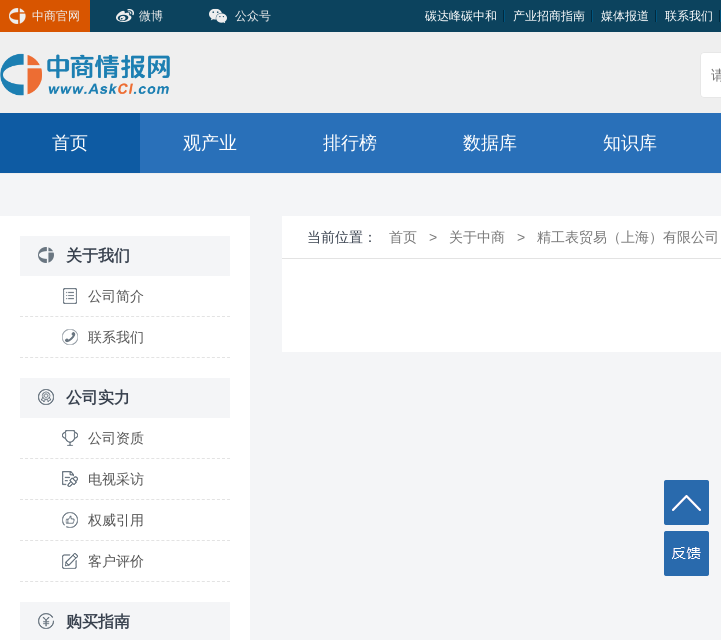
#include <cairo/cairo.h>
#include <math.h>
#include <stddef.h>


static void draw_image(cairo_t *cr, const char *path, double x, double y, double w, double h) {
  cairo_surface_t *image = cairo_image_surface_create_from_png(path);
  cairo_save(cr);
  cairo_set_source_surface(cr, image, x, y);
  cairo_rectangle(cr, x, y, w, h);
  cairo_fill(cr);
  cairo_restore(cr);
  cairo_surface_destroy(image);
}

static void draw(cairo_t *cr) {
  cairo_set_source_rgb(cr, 12 / 255.0, 67 / 255.0, 94 / 255.0);
  cairo_paint(cr);
  cairo_set_source_rgb(cr, 216 / 255.0, 85 / 255.0, 0);
  cairo_rectangle(cr, 0, 0, 90, 32);
  cairo_fill(cr);
  draw_image(cr, "images/1.png", 9, 8, 17, 16);
  draw_image(cr, "images/2.png", 116, 9, 18, 13);
  draw_image(cr, "images/3.png", 209, 8, 18, 15);
  draw_image(cr, "images/4.png", 503, 10, 2, 12);
  draw_image(cr, "images/4.png", 591, 10, 2, 12);
  draw_image(cr, "images/4.png", 655, 10, 2, 12);
  draw_image(cr, "images/4.png", 719, 10, 2, 12);
  cairo_set_source_rgb(cr, 239 / 255.0, 239 / 255.0, 239 / 255.0);
  cairo_rectangle(cr, 0, 32, 721, 81);
  cairo_fill(cr);
  draw_image(cr, "images/5.png", 0, 53, 170, 43);
  cairo_set_source_rgb(cr, 1, 1, 1);
  cairo_new_path(cr);
  cairo_move_to(cr, 704, 52);
  cairo_line_to(cr, 721, 52);
  cairo_line_to(cr, 721, 98);
  cairo_line_to(cr, 704, 98);
  cairo_curve_to(cr, 702, 98, 700, 96, 700, 94);
  cairo_line_to(cr, 700, 56);
  cairo_curve_to(cr, 700, 54, 702, 52, 704, 52);
  cairo_close_path(cr);
  cairo_fill(cr);
  cairo_new_path(cr);
  cairo_move_to(cr, 704, 52.5);
  cairo_line_to(cr, 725.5, 52.5);
  cairo_line_to(cr, 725.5, 97.5);
  cairo_line_to(cr, 704, 97.5);
  cairo_curve_to(cr, 702, 97.5, 700.5, 96, 700.5, 94);
  cairo_line_to(cr, 700.5, 56);
  cairo_curve_to(cr, 700.5, 54, 702, 52.5, 704, 52.5);
  cairo_close_path(cr);
  cairo_set_source_rgb(cr, 231 / 255.0, 231 / 255.0, 231 / 255.0);
  cairo_set_line_width(cr, 1);
  cairo_stroke(cr);
  cairo_set_source_rgb(cr, 41 / 255.0, 112 / 255.0, 185 / 255.0);
  cairo_rectangle(cr, 140, 113, 581, 60);
  cairo_fill(cr);
  cairo_set_source_rgb(cr, 238 / 255.0, 238 / 255.0, 238 / 255.0);
  cairo_rectangle(cr, 0, 173, 721, 1);
  cairo_fill(cr);
  cairo_set_source_rgb(cr, 14 / 255.0, 91 / 255.0, 163 / 255.0);
  cairo_rectangle(cr, 0, 113, 140, 60);
  cairo_fill(cr);
  cairo_set_source_rgb(cr, 244 / 255.0, 245 / 255.0, 247 / 255.0);
  cairo_rectangle(cr, 0, 174, 721, 466);
  cairo_fill(cr);
  cairo_set_source_rgb(cr, 1, 1, 1);
  cairo_rectangle(cr, 282, 216, 439, 136);
  cairo_fill(cr);
  cairo_set_source_rgb(cr, 227 / 255.0, 227 / 255.0, 227 / 255.0);
  cairo_rectangle(cr, 282, 258, 439, 1);
  cairo_fill(cr);
  cairo_set_source_rgb(cr, 1, 1, 1);
  cairo_rectangle(cr, 0, 216, 250, 424);
  cairo_fill(cr);
  cairo_set_source_rgb(cr, 244 / 255.0, 245 / 255.0, 247 / 255.0);
  cairo_rectangle(cr, 20, 236, 210, 40);
  cairo_fill(cr);
  draw_image(cr, "images/6.png", 38, 247, 16, 16);
  cairo_new_path(cr);
  cairo_move_to(cr, 20, 316.5);
  cairo_line_to(cr, 230, 316.5);
  cairo_set_source_rgb(cr, 227 / 255.0, 227 / 255.0, 227 / 255.0);
  cairo_set_dash(cr, (double[]){3, 2.05}, 2, 0);
  cairo_stroke(cr);
  draw_image(cr, "images/7.png", 63, 288, 14, 16);
  cairo_new_path(cr);
  cairo_move_to(cr, 20, 357.5);
  cairo_line_to(cr, 230, 357.5);
  cairo_stroke(cr);
  draw_image(cr, "images/8.png", 62, 329, 16, 16);
  cairo_set_source_rgb(cr, 244 / 255.0, 245 / 255.0, 247 / 255.0);
  cairo_rectangle(cr, 20, 378, 210, 40);
  cairo_fill(cr);
  draw_image(cr, "images/9.png", 38, 389, 16, 16);
  cairo_new_path(cr);
  cairo_move_to(cr, 20, 458.5);
  cairo_line_to(cr, 230, 458.5);
  cairo_set_source_rgb(cr, 227 / 255.0, 227 / 255.0, 227 / 255.0);
  cairo_stroke(cr);
  draw_image(cr, "images/10.png", 62, 430, 16, 16);
  cairo_new_path(cr);
  cairo_move_to(cr, 20, 499.5);
  cairo_line_to(cr, 230, 499.5);
  cairo_stroke(cr);
  draw_image(cr, "images/11.png", 62, 471, 16, 16);
  cairo_new_path(cr);
  cairo_move_to(cr, 20, 540.5);
  cairo_line_to(cr, 230, 540.5);
  cairo_stroke(cr);
  draw_image(cr, "images/12.png", 62, 512, 16, 16);
  cairo_new_path(cr);
  cairo_move_to(cr, 20, 581.5);
  cairo_line_to(cr, 230, 581.5);
  cairo_stroke(cr);
  draw_image(cr, "images/13.png", 62, 553, 16, 16);
  cairo_set_source_rgb(cr, 244 / 255.0, 245 / 255.0, 247 / 255.0);
  cairo_rectangle(cr, 20, 602, 210, 38);
  cairo_fill(cr);
  draw_image(cr, "images/14.png", 38, 613, 16, 16);
  draw_image(cr, "images/15.png", 664, 480, 45, 45);
  draw_image(cr, "images/16.png", 664, 531, 45, 45);
  cairo_select_font_face(cr, "WenQuanYi Zen Hei Medium", CAIRO_FONT_SLANT_NORMAL, CAIRO_FONT_WEIGHT_NORMAL);
  cairo_set_font_size(cr, 12);
  cairo_set_source_rgb(cr, 238 / 255.0, 238 / 255.0, 238 / 255.0);
  cairo_move_to(cr, 32, 20);
  cairo_show_text(cr, "中商官网");
  cairo_move_to(cr, 139, 20);
  cairo_show_text(cr, "微博");
  cairo_move_to(cr, 235, 20);
  cairo_show_text(cr, "公众号");
  cairo_set_source_rgb(cr, 1, 1, 1);
  cairo_move_to(cr, 425, 20);
  cairo_show_text(cr, "碳达峰碳中和");
  cairo_move_to(cr, 513, 20);
  cairo_show_text(cr, "产业招商指南");
  cairo_move_to(cr, 601, 20);
  cairo_show_text(cr, "媒体报道");
  cairo_move_to(cr, 665, 20);
  cairo_show_text(cr, "联系我们");
  cairo_set_font_size(cr, 14);
  cairo_set_source_rgb(cr, 119 / 255.0, 119 / 255.0, 119 / 255.0);
  cairo_move_to(cr, 711, 80);
  cairo_show_text(cr, "请");
  cairo_set_font_size(cr, 18);
  cairo_set_source_rgb(cr, 1, 1, 1);
  cairo_move_to(cr, 52, 149);
  cairo_show_text(cr, "首页");
  cairo_move_to(cr, 183, 149);
  cairo_show_text(cr, "观产业");
  cairo_move_to(cr, 323, 149);
  cairo_show_text(cr, "排行榜");
  cairo_move_to(cr, 463, 149);
  cairo_show_text(cr, "数据库");
  cairo_move_to(cr, 603, 149);
  cairo_show_text(cr, "知识库");
  cairo_set_font_size(cr, 14);
  cairo_set_source_rgb(cr, 57 / 255.0, 66 / 255.0, 79 / 255.0);
  cairo_move_to(cr, 307, 242);
  cairo_show_text(cr, "当前位置：");
  cairo_set_source_rgb(cr, 119 / 255.0, 119 / 255.0, 119 / 255.0);
  cairo_move_to(cr, 389, 242);
  cairo_show_text(cr, "首页");
  cairo_select_font_face(cr, "Liberation Sans", CAIRO_FONT_SLANT_NORMAL, CAIRO_FONT_WEIGHT_NORMAL);
  cairo_move_to(cr, 429, 242);
  cairo_show_text(cr, ">");
  cairo_select_font_face(cr, "WenQuanYi Zen Hei Medium", CAIRO_FONT_SLANT_NORMAL, CAIRO_FONT_WEIGHT_NORMAL);
  cairo_move_to(cr, 449, 242);
  cairo_show_text(cr, "关于中商");
  cairo_select_font_face(cr, "Liberation Sans", CAIRO_FONT_SLANT_NORMAL, CAIRO_FONT_WEIGHT_NORMAL);
  cairo_move_to(cr, 517, 242);
  cairo_show_text(cr, ">");
  cairo_select_font_face(cr, "WenQuanYi Zen Hei Medium", CAIRO_FONT_SLANT_NORMAL, CAIRO_FONT_WEIGHT_NORMAL);
  cairo_move_to(cr, 537, 242);
  cairo_show_text(cr, "精工表贸易（上海）有限公司");
  cairo_select_font_face(cr, "WenQuanYi Zen Hei", CAIRO_FONT_SLANT_NORMAL, CAIRO_FONT_WEIGHT_BOLD);
  cairo_set_font_size(cr, 16);
  cairo_set_source_rgb(cr, 57 / 255.0, 66 / 255.0, 79 / 255.0);
  cairo_move_to(cr, 66, 261);
  cairo_show_text(cr, "关于我们");
  cairo_select_font_face(cr, "WenQuanYi Zen Hei Medium", CAIRO_FONT_SLANT_NORMAL, CAIRO_FONT_WEIGHT_NORMAL);
  cairo_set_font_size(cr, 14);
  cairo_set_source_rgb(cr, 85 / 255.0, 85 / 255.0, 85 / 255.0);
  cairo_move_to(cr, 88, 301);
  cairo_show_text(cr, "公司简介");
  cairo_move_to(cr, 88, 342);
  cairo_show_text(cr, "联系我们");
  cairo_select_font_face(cr, "WenQuanYi Zen Hei", CAIRO_FONT_SLANT_NORMAL, CAIRO_FONT_WEIGHT_BOLD);
  cairo_set_font_size(cr, 16);
  cairo_set_source_rgb(cr, 57 / 255.0, 66 / 255.0, 79 / 255.0);
  cairo_move_to(cr, 66, 403);
  cairo_show_text(cr, "公司实力");
  cairo_select_font_face(cr, "WenQuanYi Zen Hei Medium", CAIRO_FONT_SLANT_NORMAL, CAIRO_FONT_WEIGHT_NORMAL);
  cairo_set_font_size(cr, 14);
  cairo_set_source_rgb(cr, 85 / 255.0, 85 / 255.0, 85 / 255.0);
  cairo_move_to(cr, 88, 443);
  cairo_show_text(cr, "公司资质");
  cairo_move_to(cr, 88, 484);
  cairo_show_text(cr, "电视采访");
  cairo_move_to(cr, 88, 525);
  cairo_show_text(cr, "权威引用");
  cairo_move_to(cr, 88, 566);
  cairo_show_text(cr, "客户评价");
  cairo_select_font_face(cr, "WenQuanYi Zen Hei", CAIRO_FONT_SLANT_NORMAL, CAIRO_FONT_WEIGHT_BOLD);
  cairo_set_font_size(cr, 16);
  cairo_set_source_rgb(cr, 57 / 255.0, 66 / 255.0, 79 / 255.0);
  cairo_move_to(cr, 66, 627);
  cairo_show_text(cr, "购买指南");
}

int main(void) {
  cairo_surface_t *surface = cairo_image_surface_create(CAIRO_FORMAT_RGB24, 721, 640);
  cairo_t *cr = cairo_create(surface);
  cairo_font_options_t *options = cairo_font_options_create();
  cairo_font_options_set_hint_metrics(options, CAIRO_HINT_METRICS_OFF);
  cairo_font_options_set_hint_style(options, CAIRO_HINT_STYLE_NONE);
  cairo_set_font_options(cr, options);
  cairo_set_miter_limit(cr, 4);
  draw(cr);
  cairo_surface_write_to_png(surface, "out.png");
  cairo_font_options_destroy(options);
  cairo_destroy(cr);
  cairo_surface_destroy(surface);
  return 0;
}
